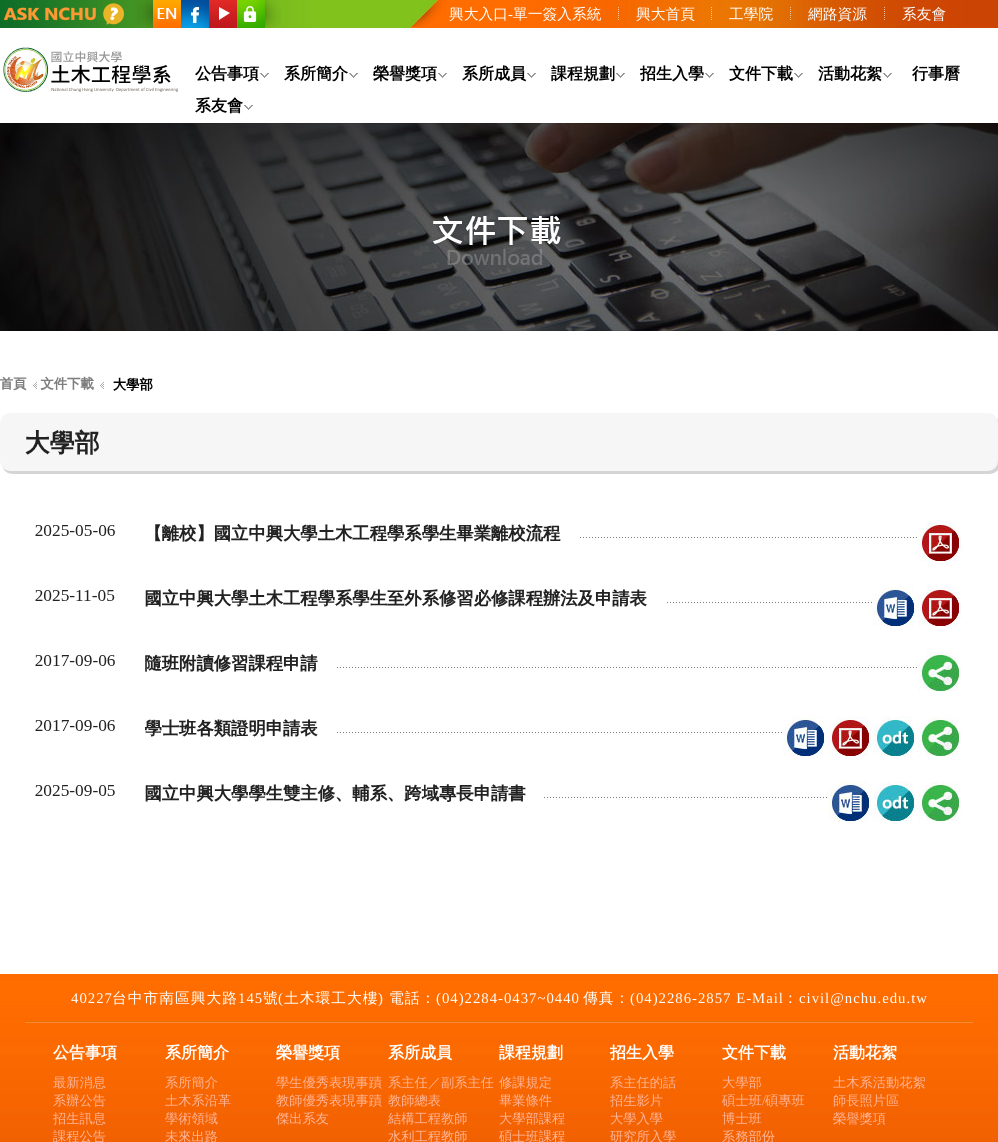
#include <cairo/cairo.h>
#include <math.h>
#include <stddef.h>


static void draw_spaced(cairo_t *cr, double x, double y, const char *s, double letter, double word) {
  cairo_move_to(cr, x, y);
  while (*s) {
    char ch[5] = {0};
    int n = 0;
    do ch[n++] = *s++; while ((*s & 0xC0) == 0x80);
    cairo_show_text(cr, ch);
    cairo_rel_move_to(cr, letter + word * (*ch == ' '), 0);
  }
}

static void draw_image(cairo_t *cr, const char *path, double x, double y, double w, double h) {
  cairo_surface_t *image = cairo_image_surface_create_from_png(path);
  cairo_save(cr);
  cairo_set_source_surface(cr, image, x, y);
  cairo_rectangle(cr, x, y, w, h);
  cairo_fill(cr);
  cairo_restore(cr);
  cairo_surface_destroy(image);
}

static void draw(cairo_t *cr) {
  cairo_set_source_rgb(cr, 1, 1, 1);
  cairo_paint(cr);
  draw_image(cr, "images/1.png", 0, 0, 998, 32);
  draw_image(cr, "images/2.png", 3, 3, 121, 22);
  draw_image(cr, "images/3.png", 134, 0, 19, 28);
  draw_image(cr, "images/4.png", 153, 0, 28, 28);
  draw_image(cr, "images/5.png", 181, 0, 28, 28);
  draw_image(cr, "images/6.png", 209, 0, 28, 28);
  draw_image(cr, "images/7.png", 237, 0, 28, 28);
  draw_image(cr, "images/8.png", 265, 0, 16, 28);
  draw_image(cr, "images/9.png", 618, 7, 1, 13);
  draw_image(cr, "images/10.png", 711, 7, 1, 13);
  draw_image(cr, "images/11.png", 790, 7, 1, 13);
  draw_image(cr, "images/12.png", 884, 7, 1, 13);
  draw_image(cr, "images/13.png", 3, 47, 175, 45);
  draw_image(cr, "images/14.png", 260, 73, 9, 5);
  draw_image(cr, "images/14.png", 349, 73, 9, 5);
  draw_image(cr, "images/14.png", 438, 73, 9, 5);
  draw_image(cr, "images/14.png", 527, 73, 9, 5);
  draw_image(cr, "images/14.png", 616, 73, 9, 5);
  draw_image(cr, "images/14.png", 705, 73, 9, 5);
  draw_image(cr, "images/14.png", 794, 73, 9, 5);
  draw_image(cr, "images/14.png", 883, 73, 9, 5);
  draw_image(cr, "images/14.png", 244, 105, 9, 5);
  draw_image(cr, "images/15.png", 0, 123, 998, 208);
  draw_image(cr, "images/16.png", 0, 376, 998, 445);
  draw_image(cr, "images/17.png", 0, 974, 998, 168);
  draw_image(cr, "images/18.png", 25, 1021, 948, 2);
  cairo_select_font_face(cr, "WenQuanYi Zen Hei Medium", CAIRO_FONT_SLANT_NORMAL, CAIRO_FONT_WEIGHT_NORMAL);
  cairo_set_font_size(cr, 14.75);
  cairo_set_source_rgb(cr, 1, 1, 1);
  cairo_move_to(cr, 449, 19);
  cairo_show_text(cr, "興大入口");
  cairo_select_font_face(cr, "Liberation Serif", CAIRO_FONT_SLANT_NORMAL, CAIRO_FONT_WEIGHT_NORMAL);
  cairo_move_to(cr, 508, 19);
  cairo_show_text(cr, "-");
  cairo_select_font_face(cr, "WenQuanYi Zen Hei Medium", CAIRO_FONT_SLANT_NORMAL, CAIRO_FONT_WEIGHT_NORMAL);
  cairo_move_to(cr, 513, 19);
  cairo_show_text(cr, "單一簽入系統");
  cairo_move_to(cr, 636, 19);
  cairo_show_text(cr, "興大首頁");
  cairo_move_to(cr, 729, 19);
  cairo_show_text(cr, "工學院");
  cairo_move_to(cr, 808, 19);
  cairo_show_text(cr, "網路資源");
  cairo_move_to(cr, 902, 19);
  cairo_show_text(cr, "系友會");
  cairo_select_font_face(cr, "WenQuanYi Zen Hei", CAIRO_FONT_SLANT_NORMAL, CAIRO_FONT_WEIGHT_BOLD);
  cairo_set_font_size(cr, 16);
  cairo_set_source_rgb(cr, 0, 0, 0);
  cairo_move_to(cr, 195, 79);
  cairo_show_text(cr, "公告事項");
  cairo_move_to(cr, 284, 79);
  cairo_show_text(cr, "系所簡介");
  cairo_move_to(cr, 373, 79);
  cairo_show_text(cr, "榮譽獎項");
  cairo_move_to(cr, 462, 79);
  cairo_show_text(cr, "系所成員");
  cairo_move_to(cr, 551, 79);
  cairo_show_text(cr, "課程規劃");
  cairo_move_to(cr, 640, 79);
  cairo_show_text(cr, "招生入學");
  cairo_move_to(cr, 729, 79);
  cairo_show_text(cr, "文件下載");
  cairo_move_to(cr, 818, 79);
  cairo_show_text(cr, "活動花絮");
  cairo_move_to(cr, 912, 79);
  cairo_show_text(cr, "行事曆");
  cairo_move_to(cr, 195, 111);
  cairo_show_text(cr, "系友會");
  cairo_select_font_face(cr, "Liberation Serif", CAIRO_FONT_SLANT_NORMAL, CAIRO_FONT_WEIGHT_NORMAL);
  cairo_set_font_size(cr, 14.75);
  cairo_set_source_rgb(cr, 1, 1, 1);
  draw_spaced(cr, 71, 1003, "40227", 1, 0);
  cairo_select_font_face(cr, "WenQuanYi Zen Hei Medium", CAIRO_FONT_SLANT_NORMAL, CAIRO_FONT_WEIGHT_NORMAL);
  draw_spaced(cr, 112, 1003, "台中市南區興大路", 1, 0);
  cairo_select_font_face(cr, "Liberation Serif", CAIRO_FONT_SLANT_NORMAL, CAIRO_FONT_WEIGHT_NORMAL);
  draw_spaced(cr, 238, 1003, "145", 1, 0);
  cairo_select_font_face(cr, "WenQuanYi Zen Hei Medium", CAIRO_FONT_SLANT_NORMAL, CAIRO_FONT_WEIGHT_NORMAL);
  draw_spaced(cr, 263, 1003, "號", 1, 0);
  cairo_select_font_face(cr, "Liberation Serif", CAIRO_FONT_SLANT_NORMAL, CAIRO_FONT_WEIGHT_NORMAL);
  draw_spaced(cr, 278, 1003, "(", 1, 0);
  cairo_select_font_face(cr, "WenQuanYi Zen Hei Medium", CAIRO_FONT_SLANT_NORMAL, CAIRO_FONT_WEIGHT_NORMAL);
  draw_spaced(cr, 284, 1003, "土木環工大樓", 1, 0);
  cairo_select_font_face(cr, "Liberation Serif", CAIRO_FONT_SLANT_NORMAL, CAIRO_FONT_WEIGHT_NORMAL);
  draw_spaced(cr, 378, 1003, ")", 1, 0);
  cairo_select_font_face(cr, "WenQuanYi Zen Hei Medium", CAIRO_FONT_SLANT_NORMAL, CAIRO_FONT_WEIGHT_NORMAL);
  draw_spaced(cr, 389, 1003, "電話：", 1, 0);
  cairo_select_font_face(cr, "Liberation Serif", CAIRO_FONT_SLANT_NORMAL, CAIRO_FONT_WEIGHT_NORMAL);
  draw_spaced(cr, 436, 1003, "(04)2284-0437~0440", 1, 0);
  cairo_select_font_face(cr, "WenQuanYi Zen Hei Medium", CAIRO_FONT_SLANT_NORMAL, CAIRO_FONT_WEIGHT_NORMAL);
  draw_spaced(cr, 583, 1003, "傳真：", 1, 0);
  cairo_select_font_face(cr, "Liberation Serif", CAIRO_FONT_SLANT_NORMAL, CAIRO_FONT_WEIGHT_NORMAL);
  draw_spaced(cr, 630, 1003, "(04)2286-2857 E-Mail", 1, 0);
  cairo_select_font_face(cr, "WenQuanYi Zen Hei Medium", CAIRO_FONT_SLANT_NORMAL, CAIRO_FONT_WEIGHT_NORMAL);
  draw_spaced(cr, 783, 1003, "：", 1, 0);
  cairo_select_font_face(cr, "Liberation Serif", CAIRO_FONT_SLANT_NORMAL, CAIRO_FONT_WEIGHT_NORMAL);
  draw_spaced(cr, 799, 1003, "civil@nchu.edu.tw", 1, 0);
  cairo_select_font_face(cr, "WenQuanYi Zen Hei", CAIRO_FONT_SLANT_NORMAL, CAIRO_FONT_WEIGHT_BOLD);
  cairo_set_font_size(cr, 16);
  cairo_move_to(cr, 53, 1058);
  cairo_show_text(cr, "公告事項");
  cairo_select_font_face(cr, "WenQuanYi Zen Hei Medium", CAIRO_FONT_SLANT_NORMAL, CAIRO_FONT_WEIGHT_NORMAL);
  cairo_set_font_size(cr, 13.25);
  cairo_set_source_rgb(cr, 1, 180 / 255.0, 151 / 255.0);
  cairo_move_to(cr, 53, 1087);
  cairo_show_text(cr, "最新消息");
  cairo_move_to(cr, 53, 1105);
  cairo_show_text(cr, "系辦公告");
  cairo_move_to(cr, 53, 1123);
  cairo_show_text(cr, "招生訊息");
  cairo_move_to(cr, 53, 1141);
  cairo_show_text(cr, "課程公告");
  cairo_select_font_face(cr, "WenQuanYi Zen Hei", CAIRO_FONT_SLANT_NORMAL, CAIRO_FONT_WEIGHT_BOLD);
  cairo_set_font_size(cr, 16);
  cairo_set_source_rgb(cr, 1, 1, 1);
  cairo_move_to(cr, 165, 1058);
  cairo_show_text(cr, "系所簡介");
  cairo_select_font_face(cr, "WenQuanYi Zen Hei Medium", CAIRO_FONT_SLANT_NORMAL, CAIRO_FONT_WEIGHT_NORMAL);
  cairo_set_font_size(cr, 13.25);
  cairo_set_source_rgb(cr, 1, 180 / 255.0, 151 / 255.0);
  cairo_move_to(cr, 165, 1087);
  cairo_show_text(cr, "系所簡介");
  cairo_move_to(cr, 165, 1105);
  cairo_show_text(cr, "土木系沿革");
  cairo_move_to(cr, 165, 1123);
  cairo_show_text(cr, "學術領域");
  cairo_move_to(cr, 165, 1141);
  cairo_show_text(cr, "未來出路");
  cairo_select_font_face(cr, "WenQuanYi Zen Hei", CAIRO_FONT_SLANT_NORMAL, CAIRO_FONT_WEIGHT_BOLD);
  cairo_set_font_size(cr, 16);
  cairo_set_source_rgb(cr, 1, 1, 1);
  cairo_move_to(cr, 276, 1058);
  cairo_show_text(cr, "榮譽獎項");
  cairo_select_font_face(cr, "WenQuanYi Zen Hei Medium", CAIRO_FONT_SLANT_NORMAL, CAIRO_FONT_WEIGHT_NORMAL);
  cairo_set_font_size(cr, 13.25);
  cairo_set_source_rgb(cr, 1, 180 / 255.0, 151 / 255.0);
  cairo_move_to(cr, 276, 1087);
  cairo_show_text(cr, "學生優秀表現事蹟");
  cairo_move_to(cr, 276, 1105);
  cairo_show_text(cr, "教師優秀表現事蹟");
  cairo_move_to(cr, 276, 1123);
  cairo_show_text(cr, "傑出系友");
  cairo_select_font_face(cr, "WenQuanYi Zen Hei", CAIRO_FONT_SLANT_NORMAL, CAIRO_FONT_WEIGHT_BOLD);
  cairo_set_font_size(cr, 16);
  cairo_set_source_rgb(cr, 1, 1, 1);
  cairo_move_to(cr, 388, 1058);
  cairo_show_text(cr, "系所成員");
  cairo_select_font_face(cr, "WenQuanYi Zen Hei Medium", CAIRO_FONT_SLANT_NORMAL, CAIRO_FONT_WEIGHT_NORMAL);
  cairo_set_font_size(cr, 13.25);
  cairo_set_source_rgb(cr, 1, 180 / 255.0, 151 / 255.0);
  cairo_move_to(cr, 388, 1087);
  cairo_show_text(cr, "系主任／副系主任");
  cairo_move_to(cr, 388, 1105);
  cairo_show_text(cr, "教師總表");
  cairo_move_to(cr, 388, 1123);
  cairo_show_text(cr, "結構工程教師");
  cairo_move_to(cr, 388, 1141);
  cairo_show_text(cr, "水利工程教師");
  cairo_select_font_face(cr, "WenQuanYi Zen Hei", CAIRO_FONT_SLANT_NORMAL, CAIRO_FONT_WEIGHT_BOLD);
  cairo_set_font_size(cr, 16);
  cairo_set_source_rgb(cr, 1, 1, 1);
  cairo_move_to(cr, 499, 1058);
  cairo_show_text(cr, "課程規劃");
  cairo_select_font_face(cr, "WenQuanYi Zen Hei Medium", CAIRO_FONT_SLANT_NORMAL, CAIRO_FONT_WEIGHT_NORMAL);
  cairo_set_font_size(cr, 13.25);
  cairo_set_source_rgb(cr, 1, 180 / 255.0, 151 / 255.0);
  cairo_move_to(cr, 499, 1087);
  cairo_show_text(cr, "修課規定");
  cairo_move_to(cr, 499, 1105);
  cairo_show_text(cr, "畢業條件");
  cairo_move_to(cr, 499, 1123);
  cairo_show_text(cr, "大學部課程");
  cairo_move_to(cr, 499, 1141);
  cairo_show_text(cr, "碩士班課程");
  cairo_select_font_face(cr, "WenQuanYi Zen Hei", CAIRO_FONT_SLANT_NORMAL, CAIRO_FONT_WEIGHT_BOLD);
  cairo_set_font_size(cr, 16);
  cairo_set_source_rgb(cr, 1, 1, 1);
  cairo_move_to(cr, 610, 1058);
  cairo_show_text(cr, "招生入學");
  cairo_select_font_face(cr, "WenQuanYi Zen Hei Medium", CAIRO_FONT_SLANT_NORMAL, CAIRO_FONT_WEIGHT_NORMAL);
  cairo_set_font_size(cr, 13.25);
  cairo_set_source_rgb(cr, 1, 180 / 255.0, 151 / 255.0);
  cairo_move_to(cr, 610, 1087);
  cairo_show_text(cr, "系主任的話");
  cairo_move_to(cr, 610, 1105);
  cairo_show_text(cr, "招生影片");
  cairo_move_to(cr, 610, 1123);
  cairo_show_text(cr, "大學入學");
  cairo_move_to(cr, 610, 1141);
  cairo_show_text(cr, "研究所入學");
  cairo_select_font_face(cr, "WenQuanYi Zen Hei", CAIRO_FONT_SLANT_NORMAL, CAIRO_FONT_WEIGHT_BOLD);
  cairo_set_font_size(cr, 16);
  cairo_set_source_rgb(cr, 1, 1, 1);
  cairo_move_to(cr, 722, 1058);
  cairo_show_text(cr, "文件下載");
  cairo_select_font_face(cr, "WenQuanYi Zen Hei Medium", CAIRO_FONT_SLANT_NORMAL, CAIRO_FONT_WEIGHT_NORMAL);
  cairo_set_font_size(cr, 13.25);
  cairo_set_source_rgb(cr, 1, 180 / 255.0, 151 / 255.0);
  cairo_move_to(cr, 722, 1087);
  cairo_show_text(cr, "大學部");
  cairo_move_to(cr, 722, 1105);
  cairo_show_text(cr, "碩士班");
  cairo_select_font_face(cr, "Liberation Serif", CAIRO_FONT_SLANT_NORMAL, CAIRO_FONT_WEIGHT_NORMAL);
  cairo_move_to(cr, 762, 1105);
  cairo_show_text(cr, "/");
  cairo_select_font_face(cr, "WenQuanYi Zen Hei Medium", CAIRO_FONT_SLANT_NORMAL, CAIRO_FONT_WEIGHT_NORMAL);
  cairo_move_to(cr, 765, 1105);
  cairo_show_text(cr, "碩專班");
  cairo_move_to(cr, 722, 1123);
  cairo_show_text(cr, "博士班");
  cairo_move_to(cr, 722, 1141);
  cairo_show_text(cr, "系務部份");
  cairo_select_font_face(cr, "WenQuanYi Zen Hei", CAIRO_FONT_SLANT_NORMAL, CAIRO_FONT_WEIGHT_BOLD);
  cairo_set_font_size(cr, 16);
  cairo_set_source_rgb(cr, 1, 1, 1);
  cairo_move_to(cr, 833, 1058);
  cairo_show_text(cr, "活動花絮");
  cairo_select_font_face(cr, "WenQuanYi Zen Hei Medium", CAIRO_FONT_SLANT_NORMAL, CAIRO_FONT_WEIGHT_NORMAL);
  cairo_set_font_size(cr, 13.25);
  cairo_set_source_rgb(cr, 1, 180 / 255.0, 151 / 255.0);
  cairo_move_to(cr, 833, 1087);
  cairo_show_text(cr, "土木系活動花絮");
  cairo_move_to(cr, 833, 1105);
  cairo_show_text(cr, "師長照片區");
  cairo_move_to(cr, 833, 1123);
  cairo_show_text(cr, "榮譽獎項");
}

int main(void) {
  cairo_surface_t *surface = cairo_image_surface_create(CAIRO_FORMAT_RGB24, 998, 1142);
  cairo_t *cr = cairo_create(surface);
  cairo_font_options_t *options = cairo_font_options_create();
  cairo_font_options_set_hint_metrics(options, CAIRO_HINT_METRICS_OFF);
  cairo_font_options_set_hint_style(options, CAIRO_HINT_STYLE_NONE);
  cairo_set_font_options(cr, options);
  cairo_set_miter_limit(cr, 4);
  draw(cr);
  cairo_surface_write_to_png(surface, "out.png");
  cairo_font_options_destroy(options);
  cairo_destroy(cr);
  cairo_surface_destroy(surface);
  return 0;
}
